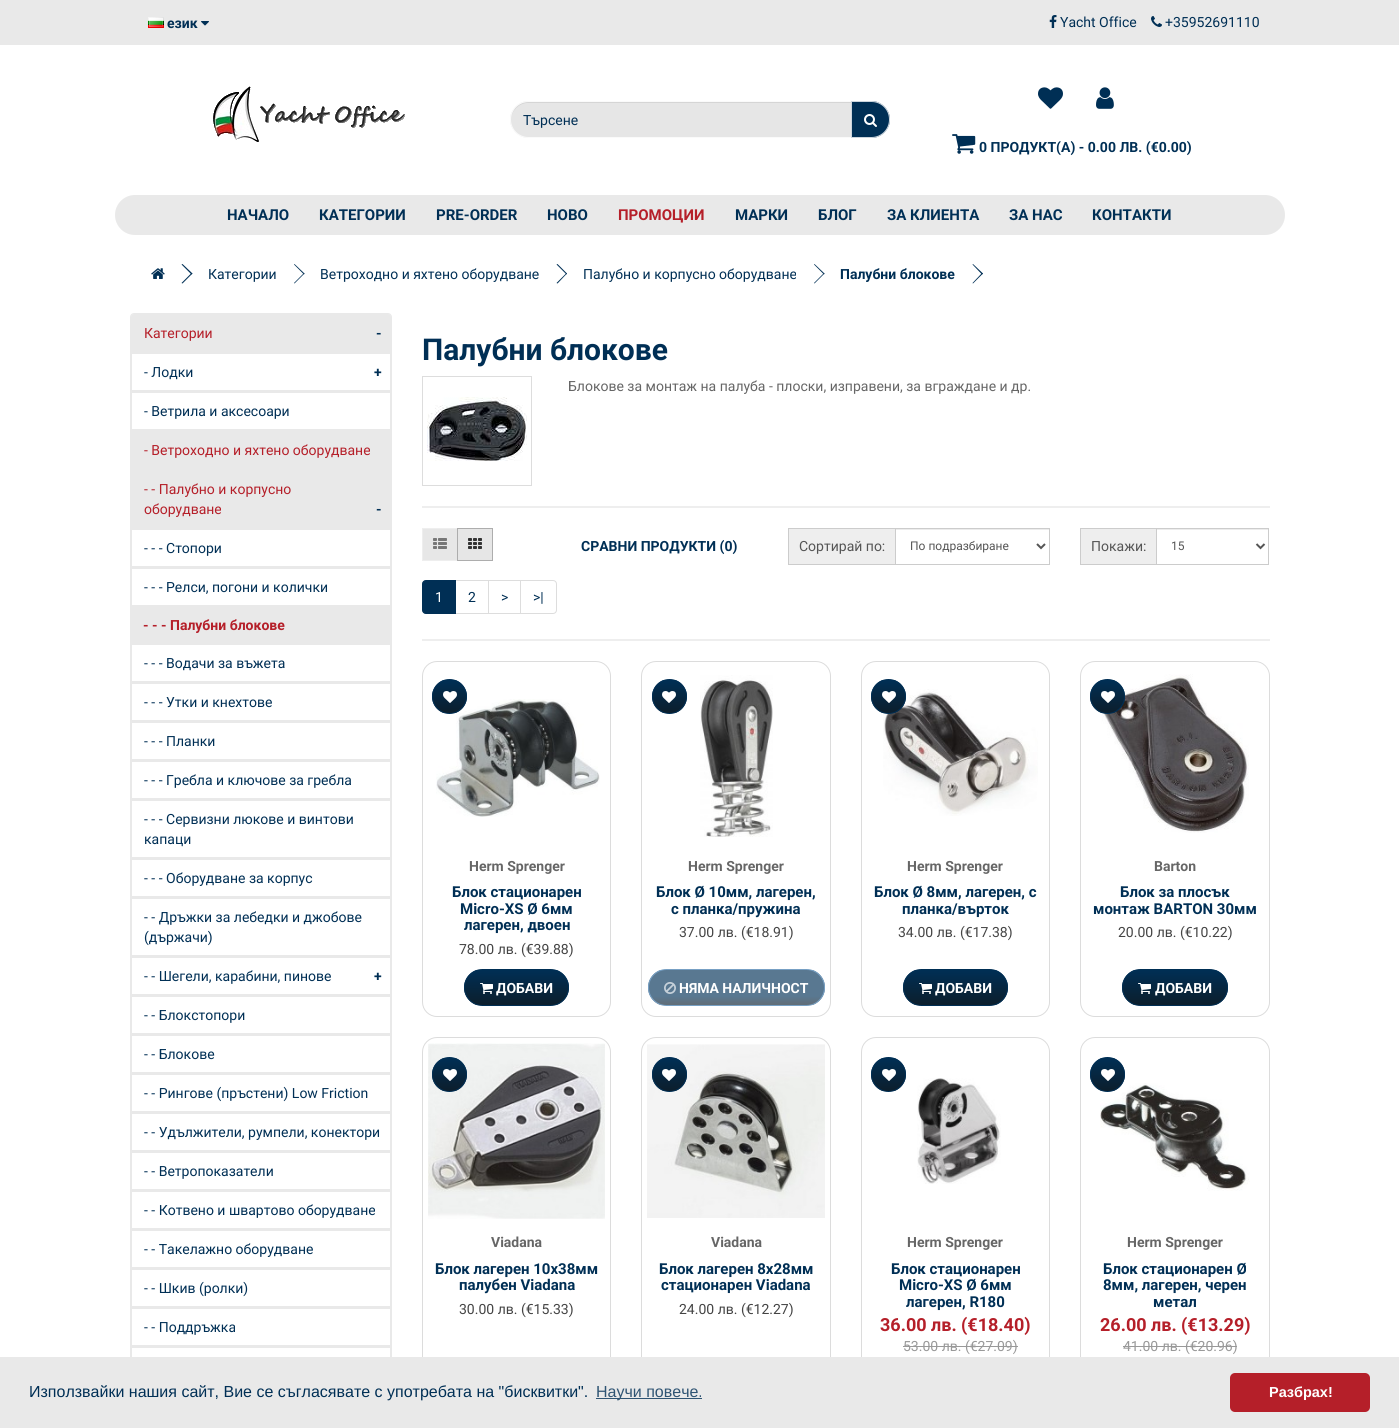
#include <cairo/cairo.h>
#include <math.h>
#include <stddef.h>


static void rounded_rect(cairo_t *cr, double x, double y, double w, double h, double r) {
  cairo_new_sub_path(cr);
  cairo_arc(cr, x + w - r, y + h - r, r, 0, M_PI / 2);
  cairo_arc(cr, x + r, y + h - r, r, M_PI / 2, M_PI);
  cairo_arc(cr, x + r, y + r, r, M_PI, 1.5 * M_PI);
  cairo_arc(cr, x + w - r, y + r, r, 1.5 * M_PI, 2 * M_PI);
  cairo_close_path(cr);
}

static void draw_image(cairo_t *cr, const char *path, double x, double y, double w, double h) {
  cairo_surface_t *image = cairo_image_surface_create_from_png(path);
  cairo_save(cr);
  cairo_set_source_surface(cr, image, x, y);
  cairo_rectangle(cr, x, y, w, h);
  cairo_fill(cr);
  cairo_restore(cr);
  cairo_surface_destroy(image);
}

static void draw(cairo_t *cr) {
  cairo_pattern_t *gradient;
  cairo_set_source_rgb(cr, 1, 1, 1);
  cairo_paint(cr);
  cairo_set_source_rgb(cr, 233 / 255.0, 233 / 255.0, 233 / 255.0);
  cairo_rectangle(cr, 0, 0, 1399, 45);
  cairo_fill(cr);
  draw_image(cr, "images/1.png", 148, 17, 16, 11);
  draw_image(cr, "images/2.png", 201, 21, 8, 5);
  draw_image(cr, "images/3.png", 1049, 15, 8, 13);
  draw_image(cr, "images/4.png", 1151, 16, 11, 11);
  draw_image(cr, "images/5.png", 213, 86, 192, 56);
  cairo_set_source_rgb(cr, 230 / 255.0, 230 / 255.0, 230 / 255.0);
  cairo_new_path(cr);
  cairo_move_to(cr, 528.5, 101);
  cairo_line_to(cr, 852, 101);
  cairo_line_to(cr, 852, 138);
  cairo_line_to(cr, 528.5, 138);
  cairo_curve_to(cr, 518.5, 138, 510, 129.5, 510, 119.5);
  cairo_curve_to(cr, 510, 109.5, 518.5, 101, 528.5, 101);
  cairo_close_path(cr);
  cairo_fill(cr);
  cairo_set_source_rgb(cr, 213 / 255.0, 213 / 255.0, 213 / 255.0);
  cairo_new_path(cr);
  cairo_move_to(cr, 528, 103);
  cairo_line_to(cr, 851, 103);
  cairo_line_to(cr, 851, 102);
  cairo_line_to(cr, 528, 102);
  cairo_curve_to(cr, 519, 102, 511, 110, 511, 120);
  cairo_curve_to(cr, 511, 111, 519, 103, 528, 103);
  cairo_close_path(cr);
  cairo_fill(cr);
  cairo_new_path(cr);
  cairo_move_to(cr, 528.5, 101.5);
  cairo_line_to(cr, 851.5, 101.5);
  cairo_line_to(cr, 851.5, 137.5);
  cairo_line_to(cr, 528.5, 137.5);
  cairo_curve_to(cr, 518.5, 137.5, 510.5, 129.5, 510.5, 119.5);
  cairo_curve_to(cr, 510.5, 109.5, 518.5, 101.5, 528.5, 101.5);
  cairo_close_path(cr);
  cairo_set_source_rgba(cr, 1, 1, 1, 0.8);
  cairo_set_line_width(cr, 1);
  cairo_stroke(cr);
  cairo_set_source_rgb(cr, 0, 47 / 255.0, 85 / 255.0);
  cairo_new_path(cr);
  cairo_move_to(cr, 851, 101);
  cairo_line_to(cr, 871.5, 101);
  cairo_curve_to(cr, 881.5, 101, 890, 109.5, 890, 119.5);
  cairo_curve_to(cr, 890, 129.5, 881.5, 138, 871.5, 138);
  cairo_line_to(cr, 851, 138);
  cairo_close_path(cr);
  cairo_fill(cr);
  cairo_new_path(cr);
  cairo_move_to(cr, 851.5, 101.5);
  cairo_line_to(cr, 871.5, 101.5);
  cairo_curve_to(cr, 881.5, 101.5, 889.5, 109.5, 889.5, 119.5);
  cairo_curve_to(cr, 889.5, 129.5, 881.5, 137.5, 871.5, 137.5);
  cairo_line_to(cr, 851.5, 137.5);
  cairo_close_path(cr);
  cairo_set_source_rgba(cr, 1, 1, 1, 0.8);
  cairo_stroke(cr);
  draw_image(cr, "images/6.png", 864, 114, 13, 13);
  draw_image(cr, "images/7.png", 1038, 87, 25, 22);
  draw_image(cr, "images/8.png", 1096, 87, 18, 22);
  draw_image(cr, "images/9.png", 952, 134, 24, 20);
  cairo_set_source_rgb(cr, 233 / 255.0, 233 / 255.0, 233 / 255.0);
  rounded_rect(cr, 115, 195, 1170, 40, 20);
  cairo_fill(cr);
  draw_image(cr, "images/10.png", 151, 268, 14, 11);
  cairo_set_source_rgb(cr, 0, 47 / 255.0, 85 / 255.0);
  cairo_new_path(cr);
  cairo_move_to(cr, 181.5, 264.5);
  cairo_line_to(cr, 182.5, 264);
  cairo_line_to(cr, 192.5, 273.5);
  cairo_line_to(cr, 191.5, 274.5);
  cairo_close_path(cr);
  cairo_fill(cr);
  cairo_new_path(cr);
  cairo_move_to(cr, 181.5, 283);
  cairo_line_to(cr, 191.5, 273);
  cairo_line_to(cr, 192.5, 273.5);
  cairo_line_to(cr, 182.5, 283.5);
  cairo_close_path(cr);
  cairo_fill(cr);
  cairo_new_path(cr);
  cairo_move_to(cr, 294, 264.5);
  cairo_line_to(cr, 294.5, 264);
  cairo_line_to(cr, 304.5, 273.5);
  cairo_line_to(cr, 304, 274.5);
  cairo_close_path(cr);
  cairo_fill(cr);
  cairo_new_path(cr);
  cairo_move_to(cr, 294, 283);
  cairo_line_to(cr, 304, 273);
  cairo_line_to(cr, 304.5, 273.5);
  cairo_line_to(cr, 294.5, 283.5);
  cairo_close_path(cr);
  cairo_fill(cr);
  cairo_new_path(cr);
  cairo_move_to(cr, 556.5, 264.5);
  cairo_line_to(cr, 557.5, 264);
  cairo_line_to(cr, 567, 273.5);
  cairo_line_to(cr, 566.5, 274.5);
  cairo_close_path(cr);
  cairo_fill(cr);
  cairo_new_path(cr);
  cairo_move_to(cr, 556.5, 283);
  cairo_line_to(cr, 566.5, 273);
  cairo_line_to(cr, 567, 273.5);
  cairo_line_to(cr, 557.5, 283.5);
  cairo_close_path(cr);
  cairo_fill(cr);
  cairo_new_path(cr);
  cairo_move_to(cr, 814, 264.5);
  cairo_line_to(cr, 814.5, 264);
  cairo_line_to(cr, 824.5, 273.5);
  cairo_line_to(cr, 824, 274.5);
  cairo_close_path(cr);
  cairo_fill(cr);
  cairo_new_path(cr);
  cairo_move_to(cr, 814, 283);
  cairo_line_to(cr, 824, 273);
  cairo_line_to(cr, 824.5, 273.5);
  cairo_line_to(cr, 814.5, 283.5);
  cairo_close_path(cr);
  cairo_fill(cr);
  cairo_new_path(cr);
  cairo_move_to(cr, 972.5, 264.5);
  cairo_line_to(cr, 973, 264);
  cairo_line_to(cr, 983, 273.5);
  cairo_line_to(cr, 982, 274.5);
  cairo_close_path(cr);
  cairo_fill(cr);
  cairo_new_path(cr);
  cairo_move_to(cr, 972.5, 283);
  cairo_line_to(cr, 982, 273);
  cairo_line_to(cr, 983, 273.5);
  cairo_line_to(cr, 973, 283.5);
  cairo_close_path(cr);
  cairo_fill(cr);
  rounded_rect(cr, 130.5, 313.5, 261, 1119, 3.5);
  cairo_set_source_rgb(cr, 233 / 255.0, 233 / 255.0, 233 / 255.0);
  cairo_stroke(cr);
  cairo_new_path(cr);
  cairo_move_to(cr, 134, 314);
  cairo_line_to(cr, 388, 314);
  cairo_curve_to(cr, 389.5, 314, 391, 315.5, 391, 317);
  cairo_line_to(cr, 391, 352);
  cairo_line_to(cr, 131, 352);
  cairo_line_to(cr, 131, 317);
  cairo_curve_to(cr, 131, 315.5, 132.5, 314, 134, 314);
  cairo_close_path(cr);
  cairo_fill(cr);
  cairo_set_fill_rule(cr, CAIRO_FILL_RULE_EVEN_ODD);
  cairo_new_path(cr);
  cairo_move_to(cr, 134, 314);
  cairo_curve_to(cr, 132, 314, 131, 315, 131, 317);
  cairo_line_to(cr, 131, 352);
  cairo_line_to(cr, 391, 352);
  cairo_line_to(cr, 391, 317);
  cairo_curve_to(cr, 391, 315, 390, 314, 388, 314);
  cairo_close_path(cr);
  cairo_move_to(cr, 132, 315);
  cairo_line_to(cr, 132, 351);
  cairo_line_to(cr, 390, 351);
  cairo_line_to(cr, 390, 315);
  cairo_close_path(cr);
  cairo_fill(cr);
  cairo_rectangle(cr, 131, 352, 260, 1);
  cairo_fill(cr);
  cairo_rectangle(cr, 131.5, 353.5, 259, 37);
  cairo_stroke(cr);
  cairo_rectangle(cr, 131, 391, 260, 1);
  cairo_fill(cr);
  cairo_rectangle(cr, 131.5, 392.5, 259, 37);
  cairo_stroke(cr);
  cairo_rectangle(cr, 131, 430, 260, 99);
  cairo_fill(cr);
  cairo_rectangle(cr, 131.5, 529.5, 259, 37);
  cairo_stroke(cr);
  cairo_rectangle(cr, 131, 567, 260, 1);
  cairo_fill(cr);
  cairo_rectangle(cr, 131.5, 568.5, 259, 37);
  cairo_stroke(cr);
  cairo_rectangle(cr, 131, 606, 260, 38);
  cairo_fill(cr);
  cairo_rectangle(cr, 131.5, 644.5, 259, 37);
  cairo_stroke(cr);
  cairo_rectangle(cr, 131, 682, 260, 1);
  cairo_fill(cr);
  cairo_rectangle(cr, 131.5, 683.5, 259, 37);
  cairo_stroke(cr);
  cairo_rectangle(cr, 131, 721, 260, 1);
  cairo_fill(cr);
  cairo_rectangle(cr, 131.5, 722.5, 259, 37);
  cairo_stroke(cr);
  cairo_rectangle(cr, 131, 760, 260, 1);
  cairo_fill(cr);
  cairo_rectangle(cr, 131.5, 761.5, 259, 37);
  cairo_stroke(cr);
  cairo_rectangle(cr, 131, 799, 260, 1);
  cairo_fill(cr);
  cairo_rectangle(cr, 131.5, 800.5, 259, 57);
  cairo_stroke(cr);
  cairo_rectangle(cr, 131, 858, 260, 1);
  cairo_fill(cr);
  cairo_rectangle(cr, 131.5, 859.5, 259, 37);
  cairo_stroke(cr);
  cairo_rectangle(cr, 131, 897, 260, 1);
  cairo_fill(cr);
  cairo_rectangle(cr, 131.5, 898.5, 259, 57);
  cairo_stroke(cr);
  cairo_rectangle(cr, 131, 956, 260, 1);
  cairo_fill(cr);
  cairo_rectangle(cr, 131.5, 957.5, 259, 37);
  cairo_stroke(cr);
  cairo_rectangle(cr, 131, 995, 260, 1);
  cairo_fill(cr);
  cairo_rectangle(cr, 131.5, 996.5, 259, 37);
  cairo_stroke(cr);
  cairo_rectangle(cr, 131, 1034, 260, 1);
  cairo_fill(cr);
  cairo_rectangle(cr, 131.5, 1035.5, 259, 37);
  cairo_stroke(cr);
  cairo_rectangle(cr, 131, 1073, 260, 1);
  cairo_fill(cr);
  cairo_rectangle(cr, 131.5, 1074.5, 259, 37);
  cairo_stroke(cr);
  cairo_rectangle(cr, 131, 1112, 260, 1);
  cairo_fill(cr);
  cairo_rectangle(cr, 131.5, 1113.5, 259, 37);
  cairo_stroke(cr);
  cairo_rectangle(cr, 131, 1151, 260, 1);
  cairo_fill(cr);
  cairo_rectangle(cr, 131.5, 1152.5, 259, 37);
  cairo_stroke(cr);
  cairo_rectangle(cr, 131, 1190, 260, 1);
  cairo_fill(cr);
  cairo_rectangle(cr, 131.5, 1191.5, 259, 37);
  cairo_stroke(cr);
  cairo_rectangle(cr, 131, 1229, 260, 1);
  cairo_fill(cr);
  cairo_rectangle(cr, 131.5, 1230.5, 259, 37);
  cairo_stroke(cr);
  cairo_rectangle(cr, 131, 1268, 260, 1);
  cairo_fill(cr);
  cairo_rectangle(cr, 131.5, 1269.5, 259, 37);
  cairo_stroke(cr);
  cairo_rectangle(cr, 131, 1307, 260, 1);
  cairo_fill(cr);
  cairo_rectangle(cr, 131.5, 1308.5, 259, 37);
  cairo_stroke(cr);
  cairo_rectangle(cr, 131, 1346, 260, 1);
  cairo_fill(cr);
  cairo_rectangle(cr, 131.5, 1347.5, 259, 37);
  cairo_stroke(cr);
  cairo_rectangle(cr, 422.5, 376.5, 109, 109);
  cairo_set_source_rgb(cr, 221 / 255.0, 221 / 255.0, 221 / 255.0);
  cairo_stroke(cr);
  draw_image(cr, "images/11.png", 427, 397, 100, 64);
  cairo_set_source_rgb(cr, 238 / 255.0, 238 / 255.0, 238 / 255.0);
  cairo_rectangle(cr, 422, 506, 848, 2);
  cairo_fill(cr);
  cairo_set_source_rgb(cr, 231 / 255.0, 231 / 255.0, 231 / 255.0);
  cairo_rectangle(cr, 422.5, 528.5, 35, 32);
  cairo_fill_preserve(cr);
  cairo_set_source_rgb(cr, 238 / 255.0, 238 / 255.0, 238 / 255.0);
  cairo_stroke(cr);
  draw_image(cr, "images/12.png", 433, 538, 14, 11);
  cairo_set_source_rgb(cr, 230 / 255.0, 230 / 255.0, 230 / 255.0);
  cairo_rectangle(cr, 457.5, 528.5, 35, 32);
  cairo_fill_preserve(cr);
  cairo_set_source_rgb(cr, 173 / 255.0, 173 / 255.0, 173 / 255.0);
  cairo_stroke(cr);
  draw_image(cr, "images/13.png", 468, 538, 14, 11);
  cairo_set_source_rgb(cr, 238 / 255.0, 238 / 255.0, 238 / 255.0);
  cairo_rectangle(cr, 789, 529, 106, 35);
  cairo_fill(cr);
  cairo_set_source_rgb(cr, 204 / 255.0, 204 / 255.0, 204 / 255.0);
  cairo_rectangle(cr, 788, 528, 107, 1);
  cairo_fill(cr);
  cairo_rectangle(cr, 788, 564, 107, 1);
  cairo_fill(cr);
  cairo_rectangle(cr, 788, 528, 1, 37);
  cairo_fill(cr);
  cairo_set_source_rgb(cr, 236 / 255.0, 236 / 255.0, 236 / 255.0);
  cairo_rectangle(cr, 896, 529, 153, 1);
  cairo_fill(cr);
  cairo_rectangle(cr, 895.5, 528.5, 154, 36);
  cairo_set_source_rgb(cr, 204 / 255.0, 204 / 255.0, 204 / 255.0);
  cairo_stroke(cr);
  cairo_new_path(cr);
  cairo_move_to(cr, 1037, 544);
  cairo_line_to(cr, 1041, 548);
  cairo_line_to(cr, 1045, 544);
  cairo_set_source_rgb(cr, 85 / 255.0, 85 / 255.0, 85 / 255.0);
  cairo_set_line_width(cr, 2);
  cairo_stroke(cr);
  cairo_set_source_rgb(cr, 238 / 255.0, 238 / 255.0, 238 / 255.0);
  cairo_rectangle(cr, 1081, 529, 75, 35);
  cairo_fill(cr);
  cairo_set_source_rgb(cr, 204 / 255.0, 204 / 255.0, 204 / 255.0);
  cairo_rectangle(cr, 1080, 528, 76, 1);
  cairo_fill(cr);
  cairo_rectangle(cr, 1080, 564, 76, 1);
  cairo_fill(cr);
  cairo_rectangle(cr, 1080, 528, 1, 37);
  cairo_fill(cr);
  cairo_set_source_rgb(cr, 236 / 255.0, 236 / 255.0, 236 / 255.0);
  cairo_rectangle(cr, 1157, 529, 111, 1);
  cairo_fill(cr);
  cairo_rectangle(cr, 1156.5, 528.5, 112, 36);
  cairo_set_source_rgb(cr, 204 / 255.0, 204 / 255.0, 204 / 255.0);
  cairo_set_line_width(cr, 1);
  cairo_stroke(cr);
  cairo_new_path(cr);
  cairo_move_to(cr, 1256.5, 544);
  cairo_line_to(cr, 1260.5, 548);
  cairo_line_to(cr, 1264.5, 544);
  cairo_set_source_rgb(cr, 85 / 255.0, 85 / 255.0, 85 / 255.0);
  cairo_set_line_width(cr, 2);
  cairo_stroke(cr);
  cairo_rectangle(cr, 455.5, 580.5, 33, 33);
  cairo_set_source_rgb(cr, 221 / 255.0, 221 / 255.0, 221 / 255.0);
  cairo_set_line_width(cr, 1);
  cairo_stroke(cr);
  cairo_set_source_rgb(cr, 0, 47 / 255.0, 85 / 255.0);
  cairo_new_path(cr);
  cairo_move_to(cr, 426, 580.5);
  cairo_line_to(cr, 455.5, 580.5);
  cairo_line_to(cr, 455.5, 613.5);
  cairo_line_to(cr, 426, 613.5);
  cairo_curve_to(cr, 424, 613.5, 422.5, 612, 422.5, 610);
  cairo_line_to(cr, 422.5, 584);
  cairo_curve_to(cr, 422.5, 582, 424, 580.5, 426, 580.5);
  cairo_close_path(cr);
  cairo_fill_preserve(cr);
  cairo_stroke(cr);
  cairo_rectangle(cr, 488.5, 580.5, 32, 33);
  cairo_set_source_rgb(cr, 221 / 255.0, 221 / 255.0, 221 / 255.0);
  cairo_stroke(cr);
  cairo_set_source_rgb(cr, 1, 1, 1);
  cairo_new_path(cr);
  cairo_move_to(cr, 520.5, 580.5);
  cairo_line_to(cr, 553, 580.5);
  cairo_curve_to(cr, 555, 580.5, 556.5, 582, 556.5, 584);
  cairo_line_to(cr, 556.5, 610);
  cairo_curve_to(cr, 556.5, 612, 555, 613.5, 553, 613.5);
  cairo_line_to(cr, 520.5, 613.5);
  cairo_close_path(cr);
  cairo_fill_preserve(cr);
  cairo_set_source_rgb(cr, 221 / 255.0, 221 / 255.0, 221 / 255.0);
  cairo_stroke(cr);
  cairo_set_source_rgb(cr, 238 / 255.0, 238 / 255.0, 238 / 255.0);
  cairo_rectangle(cr, 422, 639, 848, 2);
  cairo_fill(cr);
  rounded_rect(cr, 422.5, 661.5, 188, 355, 14.5);
  cairo_set_source_rgba(cr, 0, 0, 0, 0.14);
  cairo_stroke(cr);
  draw_image(cr, "images/15.png", 436, 699, 164, 118);
  cairo_save(cr);
  cairo_set_fill_rule(cr, CAIRO_FILL_RULE_WINDING);
  rounded_rect(cr, 432, 679, 35, 35, 17.5);
  cairo_clip(cr);
  gradient = cairo_pattern_create_linear(450, 680, 450, 713);
  cairo_pattern_add_color_stop_rgba(gradient, 0, 0, 47 / 255.0, 85 / 255.0, 1);
  cairo_pattern_add_color_stop_rgba(gradient, 1, 12 / 255.0, 30 / 255.0, 44 / 255.0, 1);
  cairo_set_source(cr, gradient);
  cairo_pattern_destroy(gradient);
  cairo_rectangle(cr, 432, 680, 35, 33);
  cairo_fill(cr);
  cairo_restore(cr);
  cairo_arc(cr, 449.5, 696.5, 17, 0, 2 * M_PI);
  cairo_set_source_rgb(cr, 0, 47 / 255.0, 85 / 255.0);
  cairo_stroke(cr);
  draw_image(cr, "images/14.png", 443, 691, 14, 12);
  cairo_save(cr);
  cairo_set_fill_rule(cr, CAIRO_FILL_RULE_WINDING);
  rounded_rect(cr, 464, 969, 105, 37, 18.5);
  cairo_clip(cr);
  gradient = cairo_pattern_create_linear(517, 970, 517, 1005);
  cairo_pattern_add_color_stop_rgba(gradient, 0, 0, 47 / 255.0, 85 / 255.0, 1);
  cairo_pattern_add_color_stop_rgba(gradient, 1, 12 / 255.0, 30 / 255.0, 44 / 255.0, 1);
  cairo_set_source(cr, gradient);
  cairo_pattern_destroy(gradient);
  cairo_rectangle(cr, 464, 970, 105, 35);
  cairo_fill(cr);
  cairo_restore(cr);
  rounded_rect(cr, 464.5, 969.5, 104, 36, 18);
  cairo_stroke(cr);
  draw_image(cr, "images/16.png", 480, 983, 13, 11);
  rounded_rect(cr, 641.5, 661.5, 189, 355, 14.5);
  cairo_set_source_rgba(cr, 0, 0, 0, 0.14);
  cairo_stroke(cr);
  cairo_save(cr);
  cairo_set_fill_rule(cr, CAIRO_FILL_RULE_WINDING);
  rounded_rect(cr, 652, 679, 35, 35, 17.5);
  cairo_clip(cr);
  gradient = cairo_pattern_create_linear(670, 680, 670, 713);
  cairo_pattern_add_color_stop_rgba(gradient, 0, 0, 47 / 255.0, 85 / 255.0, 1);
  cairo_pattern_add_color_stop_rgba(gradient, 1, 12 / 255.0, 30 / 255.0, 44 / 255.0, 1);
  cairo_set_source(cr, gradient);
  cairo_pattern_destroy(gradient);
  cairo_rectangle(cr, 652, 680, 35, 33);
  cairo_fill(cr);
  cairo_restore(cr);
  cairo_arc(cr, 669.5, 696.5, 17, 0, 2 * M_PI);
  cairo_set_source_rgb(cr, 0, 47 / 255.0, 85 / 255.0);
  cairo_stroke(cr);
  draw_image(cr, "images/14.png", 662, 691, 14, 12);
  draw_image(cr, "images/17.png", 700, 675, 73, 162);
  cairo_save(cr);
  cairo_set_fill_rule(cr, CAIRO_FILL_RULE_WINDING);
  rounded_rect(cr, 648, 969, 177, 37, 18.5);
  cairo_clip(cr);
  gradient = cairo_pattern_create_linear(737, 970, 737, 1005);
  cairo_pattern_add_color_stop_rgba(gradient, 0.75, 89 / 255.0, 120 / 255.0, 145 / 255.0, 1);
  cairo_pattern_add_color_stop_rgba(gradient, 1, 97 / 255.0, 109 / 255.0, 118 / 255.0, 1);
  cairo_set_source(cr, gradient);
  cairo_pattern_destroy(gradient);
  cairo_rectangle(cr, 648, 970, 177, 35);
  cairo_fill(cr);
  cairo_restore(cr);
  rounded_rect(cr, 648.5, 969.5, 176, 36, 18);
  cairo_set_source_rgb(cr, 119 / 255.0, 160 / 255.0, 196 / 255.0);
  cairo_stroke(cr);
  draw_image(cr, "images/18.png", 664, 982, 12, 12);
  rounded_rect(cr, 861.5, 661.5, 188, 355, 14.5);
  cairo_set_source_rgba(cr, 0, 0, 0, 0.14);
  cairo_stroke(cr);
  draw_image(cr, "images/19.png", 883, 689, 155, 127);
  cairo_save(cr);
  cairo_set_fill_rule(cr, CAIRO_FILL_RULE_WINDING);
  rounded_rect(cr, 871, 679, 35, 35, 17.5);
  cairo_clip(cr);
  gradient = cairo_pattern_create_linear(889, 680, 889, 713);
  cairo_pattern_add_color_stop_rgba(gradient, 0, 0, 47 / 255.0, 85 / 255.0, 1);
  cairo_pattern_add_color_stop_rgba(gradient, 1, 12 / 255.0, 30 / 255.0, 44 / 255.0, 1);
  cairo_set_source(cr, gradient);
  cairo_pattern_destroy(gradient);
  cairo_rectangle(cr, 871, 680, 35, 33);
  cairo_fill(cr);
  cairo_restore(cr);
  cairo_arc(cr, 888.5, 696.5, 17, 0, 2 * M_PI);
  cairo_set_source_rgb(cr, 0, 47 / 255.0, 85 / 255.0);
  cairo_stroke(cr);
  draw_image(cr, "images/14.png", 882, 691, 14, 12);
  cairo_save(cr);
  cairo_set_fill_rule(cr, CAIRO_FILL_RULE_WINDING);
  rounded_rect(cr, 903, 969, 105, 37, 18.5);
  cairo_clip(cr);
  gradient = cairo_pattern_create_linear(956, 970, 956, 1005);
  cairo_pattern_add_color_stop_rgba(gradient, 0, 0, 47 / 255.0, 85 / 255.0, 1);
  cairo_pattern_add_color_stop_rgba(gradient, 1, 12 / 255.0, 30 / 255.0, 44 / 255.0, 1);
  cairo_set_source(cr, gradient);
  cairo_pattern_destroy(gradient);
  cairo_rectangle(cr, 903, 970, 105, 35);
  cairo_fill(cr);
  cairo_restore(cr);
  rounded_rect(cr, 903.5, 969.5, 104, 36, 18);
  cairo_stroke(cr);
  draw_image(cr, "images/16.png", 919, 983, 13, 11);
  rounded_rect(cr, 1080.5, 661.5, 189, 355, 14.5);
  cairo_set_source_rgba(cr, 0, 0, 0, 0.14);
  cairo_stroke(cr);
  draw_image(cr, "images/20.png", 1101, 674, 148, 159);
  cairo_save(cr);
  cairo_set_fill_rule(cr, CAIRO_FILL_RULE_WINDING);
  rounded_rect(cr, 1090, 679, 35, 35, 17.5);
  cairo_clip(cr);
  gradient = cairo_pattern_create_linear(1108, 680, 1108, 713);
  cairo_pattern_add_color_stop_rgba(gradient, 0, 0, 47 / 255.0, 85 / 255.0, 1);
  cairo_pattern_add_color_stop_rgba(gradient, 1, 12 / 255.0, 30 / 255.0, 44 / 255.0, 1);
  cairo_set_source(cr, gradient);
  cairo_pattern_destroy(gradient);
  cairo_rectangle(cr, 1090, 680, 35, 33);
  cairo_fill(cr);
  cairo_restore(cr);
  cairo_arc(cr, 1107.5, 696.5, 17, 0, 2 * M_PI);
  cairo_set_source_rgb(cr, 0, 47 / 255.0, 85 / 255.0);
  cairo_stroke(cr);
  draw_image(cr, "images/14.png", 1101, 691, 14, 12);
  cairo_save(cr);
  cairo_set_fill_rule(cr, CAIRO_FILL_RULE_WINDING);
  rounded_rect(cr, 1122, 969, 106, 37, 18.5);
  cairo_clip(cr);
  gradient = cairo_pattern_create_linear(1175, 970, 1175, 1005);
  cairo_pattern_add_color_stop_rgba(gradient, 0, 0, 47 / 255.0, 85 / 255.0, 1);
  cairo_pattern_add_color_stop_rgba(gradient, 1, 12 / 255.0, 30 / 255.0, 44 / 255.0, 1);
  cairo_set_source(cr, gradient);
  cairo_pattern_destroy(gradient);
  cairo_rectangle(cr, 1122, 970, 106, 35);
  cairo_fill(cr);
  cairo_restore(cr);
  rounded_rect(cr, 1122.5, 969.5, 105, 36, 18);
  cairo_stroke(cr);
  draw_image(cr, "images/16.png", 1138, 983, 13, 11);
  rounded_rect(cr, 422.5, 1037.5, 188, 376, 14.5);
  cairo_set_source_rgba(cr, 0, 0, 0, 0.14);
  cairo_stroke(cr);
  draw_image(cr, "images/21.png", 428, 1043, 177, 176);
  cairo_save(cr);
  cairo_set_fill_rule(cr, CAIRO_FILL_RULE_WINDING);
  rounded_rect(cr, 432, 1057, 35, 35, 17.5);
  cairo_clip(cr);
  gradient = cairo_pattern_create_linear(450, 1058, 450, 1091);
  cairo_pattern_add_color_stop_rgba(gradient, 0, 0, 47 / 255.0, 85 / 255.0, 1);
  cairo_pattern_add_color_stop_rgba(gradient, 1, 12 / 255.0, 30 / 255.0, 44 / 255.0, 1);
  cairo_set_source(cr, gradient);
  cairo_pattern_destroy(gradient);
  cairo_rectangle(cr, 432, 1058, 35, 33);
  cairo_fill(cr);
  cairo_restore(cr);
  cairo_arc(cr, 449.5, 1074.5, 17, 0, 2 * M_PI);
  cairo_set_source_rgb(cr, 0, 47 / 255.0, 85 / 255.0);
  cairo_stroke(cr);
  draw_image(cr, "images/14.png", 443, 1069, 14, 12);
  rounded_rect(cr, 641.5, 1037.5, 189, 376, 14.5);
  cairo_set_source_rgba(cr, 0, 0, 0, 0.14);
  cairo_stroke(cr);
  draw_image(cr, "images/22.png", 647, 1044, 178, 174);
  cairo_save(cr);
  cairo_set_fill_rule(cr, CAIRO_FILL_RULE_WINDING);
  rounded_rect(cr, 652, 1057, 35, 35, 17.5);
  cairo_clip(cr);
  gradient = cairo_pattern_create_linear(670, 1058, 670, 1091);
  cairo_pattern_add_color_stop_rgba(gradient, 0, 0, 47 / 255.0, 85 / 255.0, 1);
  cairo_pattern_add_color_stop_rgba(gradient, 1, 12 / 255.0, 30 / 255.0, 44 / 255.0, 1);
  cairo_set_source(cr, gradient);
  cairo_pattern_destroy(gradient);
  cairo_rectangle(cr, 652, 1058, 35, 33);
  cairo_fill(cr);
  cairo_restore(cr);
  cairo_arc(cr, 669.5, 1074.5, 17, 0, 2 * M_PI);
  cairo_set_source_rgb(cr, 0, 47 / 255.0, 85 / 255.0);
  cairo_stroke(cr);
  draw_image(cr, "images/14.png", 662, 1069, 14, 12);
  rounded_rect(cr, 861.5, 1037.5, 188, 376, 14.5);
  cairo_set_source_rgba(cr, 0, 0, 0, 0.14);
  cairo_stroke(cr);
  cairo_save(cr);
  cairo_set_fill_rule(cr, CAIRO_FILL_RULE_WINDING);
  rounded_rect(cr, 871, 1057, 35, 35, 17.5);
  cairo_clip(cr);
  gradient = cairo_pattern_create_linear(889, 1058, 889, 1091);
  cairo_pattern_add_color_stop_rgba(gradient, 0, 0, 47 / 255.0, 85 / 255.0, 1);
  cairo_pattern_add_color_stop_rgba(gradient, 1, 12 / 255.0, 30 / 255.0, 44 / 255.0, 1);
  cairo_set_source(cr, gradient);
  cairo_pattern_destroy(gradient);
  cairo_rectangle(cr, 871, 1058, 35, 33);
  cairo_fill(cr);
  cairo_restore(cr);
  cairo_arc(cr, 888.5, 1074.5, 17, 0, 2 * M_PI);
  cairo_set_source_rgb(cr, 0, 47 / 255.0, 85 / 255.0);
  cairo_stroke(cr);
  draw_image(cr, "images/14.png", 882, 1069, 14, 12);
  draw_image(cr, "images/23.png", 917, 1078, 84, 106);
  cairo_set_source_rgb(cr, 153 / 255.0, 153 / 255.0, 153 / 255.0);
  cairo_rectangle(cr, 903, 1346, 115, 1);
  cairo_fill(cr);
  rounded_rect(cr, 1080.5, 1037.5, 189, 376, 14.5);
  cairo_set_source_rgba(cr, 0, 0, 0, 0.14);
  cairo_stroke(cr);
  draw_image(cr, "images/24.png", 1100, 1083, 150, 108);
  cairo_save(cr);
  cairo_set_fill_rule(cr, CAIRO_FILL_RULE_WINDING);
  rounded_rect(cr, 1090, 1057, 35, 35, 17.5);
  cairo_clip(cr);
  gradient = cairo_pattern_create_linear(1108, 1058, 1108, 1091);
  cairo_pattern_add_color_stop_rgba(gradient, 0, 0, 47 / 255.0, 85 / 255.0, 1);
  cairo_pattern_add_color_stop_rgba(gradient, 1, 12 / 255.0, 30 / 255.0, 44 / 255.0, 1);
  cairo_set_source(cr, gradient);
  cairo_pattern_destroy(gradient);
  cairo_rectangle(cr, 1090, 1058, 35, 33);
  cairo_fill(cr);
  cairo_restore(cr);
  cairo_arc(cr, 1107.5, 1074.5, 17, 0, 2 * M_PI);
  cairo_set_source_rgb(cr, 0, 47 / 255.0, 85 / 255.0);
  cairo_stroke(cr);
  draw_image(cr, "images/14.png", 1101, 1069, 14, 12);
  cairo_set_source_rgb(cr, 153 / 255.0, 153 / 255.0, 153 / 255.0);
  cairo_rectangle(cr, 1123, 1346, 114, 1);
  cairo_fill(cr);
  cairo_set_source_rgb(cr, 233 / 255.0, 233 / 255.0, 233 / 255.0);
  cairo_rectangle(cr, 0, 1357, 1399, 71);
  cairo_fill(cr);
  cairo_set_source_rgb(cr, 47 / 255.0, 84 / 255.0, 115 / 255.0);
  cairo_rectangle(cr, 596, 1398, 106, 1);
  cairo_fill(cr);
  cairo_set_source_rgb(cr, 181 / 255.0, 31 / 255.0, 41 / 255.0);
  rounded_rect(cr, 1230, 1373, 140, 39, 5);
  cairo_fill(cr);
  cairo_select_font_face(cr, "Roboto", CAIRO_FONT_SLANT_NORMAL, CAIRO_FONT_WEIGHT_BOLD);
  cairo_set_font_size(cr, 14);
  cairo_set_source_rgb(cr, 0, 47 / 255.0, 85 / 255.0);
  cairo_move_to(cr, 167, 28);
  cairo_show_text(cr, "език");
  cairo_select_font_face(cr, "Roboto", CAIRO_FONT_SLANT_NORMAL, CAIRO_FONT_WEIGHT_NORMAL);
  cairo_move_to(cr, 1060, 27);
  cairo_show_text(cr, "Yacht Office");
  cairo_move_to(cr, 1165, 27);
  cairo_show_text(cr, "+35952691110");
  cairo_move_to(cr, 523, 125);
  cairo_show_text(cr, "Търсене");
  cairo_select_font_face(cr, "Roboto", CAIRO_FONT_SLANT_NORMAL, CAIRO_FONT_WEIGHT_BOLD);
  cairo_move_to(cr, 979, 152);
  cairo_show_text(cr, "0 ПРОДУКТ(А) - 0.00 ЛВ. (€0.00)");
  cairo_set_font_size(cr, 15);
  cairo_move_to(cr, 227, 220);
  cairo_show_text(cr, "НАЧАЛО");
  cairo_move_to(cr, 319, 220);
  cairo_show_text(cr, "КАТЕГОРИИ");
  cairo_move_to(cr, 436, 220);
  cairo_show_text(cr, "PRE-ORDER");
  cairo_move_to(cr, 547, 220);
  cairo_show_text(cr, "НОВО");
  cairo_set_source_rgb(cr, 181 / 255.0, 31 / 255.0, 41 / 255.0);
  cairo_move_to(cr, 618, 220);
  cairo_show_text(cr, "ПРОМОЦИИ");
  cairo_set_source_rgb(cr, 0, 47 / 255.0, 85 / 255.0);
  cairo_move_to(cr, 735, 220);
  cairo_show_text(cr, "МАРКИ");
  cairo_move_to(cr, 818, 220);
  cairo_show_text(cr, "БЛОГ");
  cairo_move_to(cr, 887, 220);
  cairo_show_text(cr, "ЗА КЛИЕНТА");
  cairo_move_to(cr, 1009, 220);
  cairo_show_text(cr, "ЗА НАС");
  cairo_move_to(cr, 1092, 220);
  cairo_show_text(cr, "КОНТАКТИ");
  cairo_select_font_face(cr, "Roboto", CAIRO_FONT_SLANT_NORMAL, CAIRO_FONT_WEIGHT_NORMAL);
  cairo_set_font_size(cr, 14);
  cairo_move_to(cr, 208, 279);
  cairo_show_text(cr, "Категории");
  cairo_move_to(cr, 320, 279);
  cairo_show_text(cr, "Ветроходно и яхтено оборудване");
  cairo_move_to(cr, 583, 279);
  cairo_show_text(cr, "Палубно и корпусно оборудване");
  cairo_select_font_face(cr, "Roboto", CAIRO_FONT_SLANT_NORMAL, CAIRO_FONT_WEIGHT_BOLD);
  cairo_move_to(cr, 840, 279);
  cairo_show_text(cr, "Палубни блокове");
  cairo_select_font_face(cr, "Roboto", CAIRO_FONT_SLANT_NORMAL, CAIRO_FONT_WEIGHT_NORMAL);
  cairo_set_source_rgb(cr, 181 / 255.0, 31 / 255.0, 41 / 255.0);
  cairo_move_to(cr, 144, 338);
  cairo_show_text(cr, "Категории");
  cairo_select_font_face(cr, "Roboto", CAIRO_FONT_SLANT_NORMAL, CAIRO_FONT_WEIGHT_BOLD);
  cairo_set_source_rgb(cr, 0, 47 / 255.0, 85 / 255.0);
  cairo_move_to(cr, 376, 338);
  cairo_show_text(cr, "-");
  cairo_select_font_face(cr, "Roboto", CAIRO_FONT_SLANT_NORMAL, CAIRO_FONT_WEIGHT_NORMAL);
  cairo_move_to(cr, 144, 377);
  cairo_show_text(cr, "- Лодки");
  cairo_select_font_face(cr, "Roboto", CAIRO_FONT_SLANT_NORMAL, CAIRO_FONT_WEIGHT_BOLD);
  cairo_move_to(cr, 374, 377);
  cairo_show_text(cr, "+");
  cairo_select_font_face(cr, "Roboto", CAIRO_FONT_SLANT_NORMAL, CAIRO_FONT_WEIGHT_NORMAL);
  cairo_move_to(cr, 144, 416);
  cairo_show_text(cr, "- Ветрила и аксесоари");
  cairo_set_source_rgb(cr, 181 / 255.0, 31 / 255.0, 41 / 255.0);
  cairo_move_to(cr, 144, 455);
  cairo_show_text(cr, "- Ветроходно и яхтено оборудване");
  cairo_move_to(cr, 144, 494);
  cairo_show_text(cr, "- - Палубно и корпусно");
  cairo_move_to(cr, 144, 514);
  cairo_show_text(cr, "оборудване");
  cairo_select_font_face(cr, "Roboto", CAIRO_FONT_SLANT_NORMAL, CAIRO_FONT_WEIGHT_BOLD);
  cairo_set_source_rgb(cr, 0, 47 / 255.0, 85 / 255.0);
  cairo_move_to(cr, 376, 514);
  cairo_show_text(cr, "-");
  cairo_select_font_face(cr, "Roboto", CAIRO_FONT_SLANT_NORMAL, CAIRO_FONT_WEIGHT_NORMAL);
  cairo_move_to(cr, 144, 553);
  cairo_show_text(cr, "- - - Стопори");
  cairo_move_to(cr, 144, 592);
  cairo_show_text(cr, "- - - Релси, погони и колички");
  cairo_select_font_face(cr, "Roboto", CAIRO_FONT_SLANT_NORMAL, CAIRO_FONT_WEIGHT_BOLD);
  cairo_set_source_rgb(cr, 181 / 255.0, 31 / 255.0, 41 / 255.0);
  cairo_move_to(cr, 143, 630);
  cairo_show_text(cr, "- - - Палубни блокове");
  cairo_select_font_face(cr, "Roboto", CAIRO_FONT_SLANT_NORMAL, CAIRO_FONT_WEIGHT_NORMAL);
  cairo_set_source_rgb(cr, 0, 47 / 255.0, 85 / 255.0);
  cairo_move_to(cr, 144, 668);
  cairo_show_text(cr, "- - - Водачи за въжета");
  cairo_move_to(cr, 144, 707);
  cairo_show_text(cr, "- - - Утки и кнехтове");
  cairo_move_to(cr, 144, 746);
  cairo_show_text(cr, "- - - Планки");
  cairo_move_to(cr, 144, 785);
  cairo_show_text(cr, "- - - Гребла и ключове за гребла");
  cairo_move_to(cr, 144, 824);
  cairo_show_text(cr, "- - - Сервизни люкове и винтови");
  cairo_move_to(cr, 144, 844);
  cairo_show_text(cr, "капаци");
  cairo_move_to(cr, 144, 883);
  cairo_show_text(cr, "- - - Оборудване за корпус");
  cairo_move_to(cr, 144, 922);
  cairo_show_text(cr, "- - Дръжки за лебедки и джобове");
  cairo_move_to(cr, 144, 942);
  cairo_show_text(cr, "(държачи)");
  cairo_move_to(cr, 144, 981);
  cairo_show_text(cr, "- - Шегели, карабини, пинове");
  cairo_select_font_face(cr, "Roboto", CAIRO_FONT_SLANT_NORMAL, CAIRO_FONT_WEIGHT_BOLD);
  cairo_move_to(cr, 374, 981);
  cairo_show_text(cr, "+");
  cairo_select_font_face(cr, "Roboto", CAIRO_FONT_SLANT_NORMAL, CAIRO_FONT_WEIGHT_NORMAL);
  cairo_move_to(cr, 144, 1020);
  cairo_show_text(cr, "- - Блокстопори");
  cairo_move_to(cr, 144, 1059);
  cairo_show_text(cr, "- - Блокове");
  cairo_move_to(cr, 144, 1098);
  cairo_show_text(cr, "- - Рингове (пръстени) Low Friction");
  cairo_move_to(cr, 144, 1137);
  cairo_show_text(cr, "- - Удължители, румпели, конектори");
  cairo_move_to(cr, 144, 1176);
  cairo_show_text(cr, "- - Ветропоказатели");
  cairo_move_to(cr, 144, 1215);
  cairo_show_text(cr, "- - Котвено и швартово оборудване");
  cairo_move_to(cr, 144, 1254);
  cairo_show_text(cr, "- - Такелажно оборудване");
  cairo_move_to(cr, 144, 1293);
  cairo_show_text(cr, "- - Шкив (ролки)");
  cairo_move_to(cr, 144, 1332);
  cairo_show_text(cr, "- - Поддръжка");
  cairo_select_font_face(cr, "Roboto", CAIRO_FONT_SLANT_NORMAL, CAIRO_FONT_WEIGHT_BOLD);
  cairo_set_font_size(cr, 30);
  cairo_move_to(cr, 422, 360);
  cairo_show_text(cr, "Палубни блокове");
  cairo_select_font_face(cr, "Roboto", CAIRO_FONT_SLANT_NORMAL, CAIRO_FONT_WEIGHT_NORMAL);
  cairo_set_font_size(cr, 14);
  cairo_set_source_rgb(cr, 102 / 255.0, 102 / 255.0, 102 / 255.0);
  cairo_move_to(cr, 568, 391);
  cairo_show_text(cr, "Блокове за монтаж на палуба - плоски, изправени, за вграждане и др.");
  cairo_select_font_face(cr, "Roboto", CAIRO_FONT_SLANT_NORMAL, CAIRO_FONT_WEIGHT_BOLD);
  cairo_set_source_rgb(cr, 0, 47 / 255.0, 85 / 255.0);
  cairo_move_to(cr, 581, 551);
  cairo_show_text(cr, "СРАВНИ ПРОДУКТИ (0)");
  cairo_select_font_face(cr, "Roboto", CAIRO_FONT_SLANT_NORMAL, CAIRO_FONT_WEIGHT_NORMAL);
  cairo_set_source_rgb(cr, 85 / 255.0, 85 / 255.0, 85 / 255.0);
  cairo_move_to(cr, 799, 551);
  cairo_show_text(cr, "Сортирай по:");
  cairo_set_font_size(cr, 12);
  cairo_move_to(cr, 910, 550);
  cairo_show_text(cr, "По подразбиране");
  cairo_set_font_size(cr, 14);
  cairo_move_to(cr, 1091, 551);
  cairo_show_text(cr, "Покажи:");
  cairo_set_font_size(cr, 12);
  cairo_move_to(cr, 1171, 550);
  cairo_show_text(cr, "15");
  cairo_set_font_size(cr, 14);
  cairo_set_source_rgb(cr, 1, 1, 1);
  cairo_move_to(cr, 435, 602);
  cairo_show_text(cr, "1");
  cairo_set_source_rgb(cr, 0, 47 / 255.0, 85 / 255.0);
  cairo_move_to(cr, 468, 602);
  cairo_show_text(cr, "2");
  cairo_move_to(cr, 501, 602);
  cairo_show_text(cr, ">");
  cairo_move_to(cr, 533, 602);
  cairo_show_text(cr, ">|");
  cairo_select_font_face(cr, "Roboto", CAIRO_FONT_SLANT_NORMAL, CAIRO_FONT_WEIGHT_BOLD);
  cairo_set_source_rgb(cr, 102 / 255.0, 102 / 255.0, 102 / 255.0);
  cairo_move_to(cr, 469, 871);
  cairo_show_text(cr, "Herm Sprenger");
  cairo_set_font_size(cr, 15);
  cairo_set_source_rgb(cr, 0, 47 / 255.0, 85 / 255.0);
  cairo_move_to(cr, 452, 897);
  cairo_show_text(cr, "Блок стационарен");
  cairo_move_to(cr, 460, 914);
  cairo_show_text(cr, "Micro-XS Ø 6мм");
  cairo_move_to(cr, 464, 930);
  cairo_show_text(cr, "лагерен, двоен");
  cairo_select_font_face(cr, "Roboto", CAIRO_FONT_SLANT_NORMAL, CAIRO_FONT_WEIGHT_NORMAL);
  cairo_set_font_size(cr, 14);
  cairo_set_source_rgb(cr, 68 / 255.0, 68 / 255.0, 68 / 255.0);
  cairo_move_to(cr, 459, 954);
  cairo_show_text(cr, "78.00 лв. (€39.88)");
  cairo_select_font_face(cr, "Roboto", CAIRO_FONT_SLANT_NORMAL, CAIRO_FONT_WEIGHT_BOLD);
  cairo_set_source_rgb(cr, 1, 1, 1);
  cairo_move_to(cr, 496, 993);
  cairo_show_text(cr, "ДОБАВИ");
  cairo_set_source_rgb(cr, 102 / 255.0, 102 / 255.0, 102 / 255.0);
  cairo_move_to(cr, 688, 871);
  cairo_show_text(cr, "Herm Sprenger");
  cairo_set_font_size(cr, 15);
  cairo_set_source_rgb(cr, 0, 47 / 255.0, 85 / 255.0);
  cairo_move_to(cr, 656, 897);
  cairo_show_text(cr, "Блок Ø 10мм, лагерен,");
  cairo_move_to(cr, 671, 914);
  cairo_show_text(cr, "с планка/пружина");
  cairo_select_font_face(cr, "Roboto", CAIRO_FONT_SLANT_NORMAL, CAIRO_FONT_WEIGHT_NORMAL);
  cairo_set_font_size(cr, 14);
  cairo_set_source_rgb(cr, 68 / 255.0, 68 / 255.0, 68 / 255.0);
  cairo_move_to(cr, 679, 937);
  cairo_show_text(cr, "37.00 лв. (€18.91)");
  cairo_select_font_face(cr, "Roboto", CAIRO_FONT_SLANT_NORMAL, CAIRO_FONT_WEIGHT_BOLD);
  cairo_set_source_rgb(cr, 1, 1, 1);
  cairo_move_to(cr, 679, 993);
  cairo_show_text(cr, "НЯМА НАЛИЧНОСТ");
  cairo_set_source_rgb(cr, 102 / 255.0, 102 / 255.0, 102 / 255.0);
  cairo_move_to(cr, 907, 871);
  cairo_show_text(cr, "Herm Sprenger");
  cairo_set_font_size(cr, 15);
  cairo_set_source_rgb(cr, 0, 47 / 255.0, 85 / 255.0);
  cairo_move_to(cr, 874, 897);
  cairo_show_text(cr, "Блок Ø 8мм, лагерен, с");
  cairo_move_to(cr, 902, 914);
  cairo_show_text(cr, "планка/върток");
  cairo_select_font_face(cr, "Roboto", CAIRO_FONT_SLANT_NORMAL, CAIRO_FONT_WEIGHT_NORMAL);
  cairo_set_font_size(cr, 14);
  cairo_set_source_rgb(cr, 68 / 255.0, 68 / 255.0, 68 / 255.0);
  cairo_move_to(cr, 898, 937);
  cairo_show_text(cr, "34.00 лв. (€17.38)");
  cairo_select_font_face(cr, "Roboto", CAIRO_FONT_SLANT_NORMAL, CAIRO_FONT_WEIGHT_BOLD);
  cairo_set_source_rgb(cr, 1, 1, 1);
  cairo_move_to(cr, 935, 993);
  cairo_show_text(cr, "ДОБАВИ");
  cairo_set_source_rgb(cr, 102 / 255.0, 102 / 255.0, 102 / 255.0);
  cairo_move_to(cr, 1154, 871);
  cairo_show_text(cr, "Barton");
  cairo_set_font_size(cr, 15);
  cairo_set_source_rgb(cr, 0, 47 / 255.0, 85 / 255.0);
  cairo_move_to(cr, 1120, 897);
  cairo_show_text(cr, "Блок за плосък");
  cairo_move_to(cr, 1093, 914);
  cairo_show_text(cr, "монтаж BARTON 30мм");
  cairo_select_font_face(cr, "Roboto", CAIRO_FONT_SLANT_NORMAL, CAIRO_FONT_WEIGHT_NORMAL);
  cairo_set_font_size(cr, 14);
  cairo_set_source_rgb(cr, 68 / 255.0, 68 / 255.0, 68 / 255.0);
  cairo_move_to(cr, 1118, 937);
  cairo_show_text(cr, "20.00 лв. (€10.22)");
  cairo_select_font_face(cr, "Roboto", CAIRO_FONT_SLANT_NORMAL, CAIRO_FONT_WEIGHT_BOLD);
  cairo_set_source_rgb(cr, 1, 1, 1);
  cairo_move_to(cr, 1155, 993);
  cairo_show_text(cr, "ДОБАВИ");
  cairo_set_source_rgb(cr, 102 / 255.0, 102 / 255.0, 102 / 255.0);
  cairo_move_to(cr, 491, 1247);
  cairo_show_text(cr, "Viadana");
  cairo_set_font_size(cr, 15);
  cairo_set_source_rgb(cr, 0, 47 / 255.0, 85 / 255.0);
  cairo_move_to(cr, 435, 1274);
  cairo_show_text(cr, "Блок лагерен 10х38мм");
  cairo_move_to(cr, 459, 1290);
  cairo_show_text(cr, "палубен Viadana");
  cairo_select_font_face(cr, "Roboto", CAIRO_FONT_SLANT_NORMAL, CAIRO_FONT_WEIGHT_NORMAL);
  cairo_set_font_size(cr, 14);
  cairo_set_source_rgb(cr, 68 / 255.0, 68 / 255.0, 68 / 255.0);
  cairo_move_to(cr, 459, 1314);
  cairo_show_text(cr, "30.00 лв. (€15.33)");
  cairo_select_font_face(cr, "Roboto", CAIRO_FONT_SLANT_NORMAL, CAIRO_FONT_WEIGHT_BOLD);
  cairo_set_source_rgb(cr, 102 / 255.0, 102 / 255.0, 102 / 255.0);
  cairo_move_to(cr, 711, 1247);
  cairo_show_text(cr, "Viadana");
  cairo_set_font_size(cr, 15);
  cairo_set_source_rgb(cr, 0, 47 / 255.0, 85 / 255.0);
  cairo_move_to(cr, 659, 1274);
  cairo_show_text(cr, "Блок лагерен 8х28мм");
  cairo_move_to(cr, 661, 1290);
  cairo_show_text(cr, "стационарен Viadana");
  cairo_select_font_face(cr, "Roboto", CAIRO_FONT_SLANT_NORMAL, CAIRO_FONT_WEIGHT_NORMAL);
  cairo_set_font_size(cr, 14);
  cairo_set_source_rgb(cr, 68 / 255.0, 68 / 255.0, 68 / 255.0);
  cairo_move_to(cr, 679, 1314);
  cairo_show_text(cr, "24.00 лв. (€12.27)");
  cairo_select_font_face(cr, "Roboto", CAIRO_FONT_SLANT_NORMAL, CAIRO_FONT_WEIGHT_BOLD);
  cairo_set_source_rgb(cr, 102 / 255.0, 102 / 255.0, 102 / 255.0);
  cairo_move_to(cr, 907, 1247);
  cairo_show_text(cr, "Herm Sprenger");
  cairo_set_font_size(cr, 15);
  cairo_set_source_rgb(cr, 0, 47 / 255.0, 85 / 255.0);
  cairo_move_to(cr, 891, 1274);
  cairo_show_text(cr, "Блок стационарен");
  cairo_move_to(cr, 899, 1290);
  cairo_show_text(cr, "Micro-XS Ø 6мм");
  cairo_move_to(cr, 906, 1307);
  cairo_show_text(cr, "лагерен, R180");
  cairo_set_font_size(cr, 18);
  cairo_set_source_rgb(cr, 181 / 255.0, 31 / 255.0, 41 / 255.0);
  cairo_move_to(cr, 880, 1331);
  cairo_show_text(cr, "36.00 лв. (€18.40)");
  cairo_select_font_face(cr, "Roboto", CAIRO_FONT_SLANT_NORMAL, CAIRO_FONT_WEIGHT_NORMAL);
  cairo_set_font_size(cr, 14);
  cairo_set_source_rgb(cr, 153 / 255.0, 153 / 255.0, 153 / 255.0);
  cairo_move_to(cr, 903, 1351);
  cairo_show_text(cr, "53.00 лв. (€27.09)");
  cairo_select_font_face(cr, "Roboto", CAIRO_FONT_SLANT_NORMAL, CAIRO_FONT_WEIGHT_BOLD);
  cairo_set_source_rgb(cr, 102 / 255.0, 102 / 255.0, 102 / 255.0);
  cairo_move_to(cr, 1127, 1247);
  cairo_show_text(cr, "Herm Sprenger");
  cairo_set_font_size(cr, 15);
  cairo_set_source_rgb(cr, 0, 47 / 255.0, 85 / 255.0);
  cairo_move_to(cr, 1103, 1274);
  cairo_show_text(cr, "Блок стационарен Ø");
  cairo_move_to(cr, 1103, 1290);
  cairo_show_text(cr, "8мм, лагерен, черен");
  cairo_move_to(cr, 1153, 1307);
  cairo_show_text(cr, "метал");
  cairo_set_font_size(cr, 18);
  cairo_set_source_rgb(cr, 181 / 255.0, 31 / 255.0, 41 / 255.0);
  cairo_move_to(cr, 1100, 1331);
  cairo_show_text(cr, "26.00 лв. (€13.29)");
  cairo_select_font_face(cr, "Roboto", CAIRO_FONT_SLANT_NORMAL, CAIRO_FONT_WEIGHT_NORMAL);
  cairo_set_font_size(cr, 14);
  cairo_set_source_rgb(cr, 153 / 255.0, 153 / 255.0, 153 / 255.0);
  cairo_move_to(cr, 1123, 1351);
  cairo_show_text(cr, "41.00 лв. (€20.96)");
  cairo_select_font_face(cr, "Liberation Sans", CAIRO_FONT_SLANT_NORMAL, CAIRO_FONT_WEIGHT_NORMAL);
  cairo_set_font_size(cr, 16);
  cairo_set_source_rgb(cr, 0, 47 / 255.0, 85 / 255.0);
  cairo_move_to(cr, 29, 1397);
  cairo_show_text(cr, "Използвайки нашия сайт, Вие се съгласявате с употребата на \"бисквитки\".");
  cairo_set_source_rgb(cr, 47 / 255.0, 84 / 255.0, 115 / 255.0);
  cairo_move_to(cr, 596, 1397);
  cairo_show_text(cr, "Научи повече.");
  cairo_select_font_face(cr, "Liberation Sans", CAIRO_FONT_SLANT_NORMAL, CAIRO_FONT_WEIGHT_BOLD);
  cairo_set_font_size(cr, 14.5);
  cairo_set_source_rgb(cr, 1, 1, 1);
  cairo_move_to(cr, 1269, 1397);
  cairo_show_text(cr, "Разбрах!");
}

int main(void) {
  cairo_surface_t *surface = cairo_image_surface_create(CAIRO_FORMAT_RGB24, 1399, 1428);
  cairo_t *cr = cairo_create(surface);
  cairo_font_options_t *options = cairo_font_options_create();
  cairo_font_options_set_hint_metrics(options, CAIRO_HINT_METRICS_OFF);
  cairo_font_options_set_hint_style(options, CAIRO_HINT_STYLE_NONE);
  cairo_set_font_options(cr, options);
  cairo_set_miter_limit(cr, 4);
  draw(cr);
  cairo_surface_write_to_png(surface, "out.png");
  cairo_font_options_destroy(options);
  cairo_destroy(cr);
  cairo_surface_destroy(surface);
  return 0;
}
